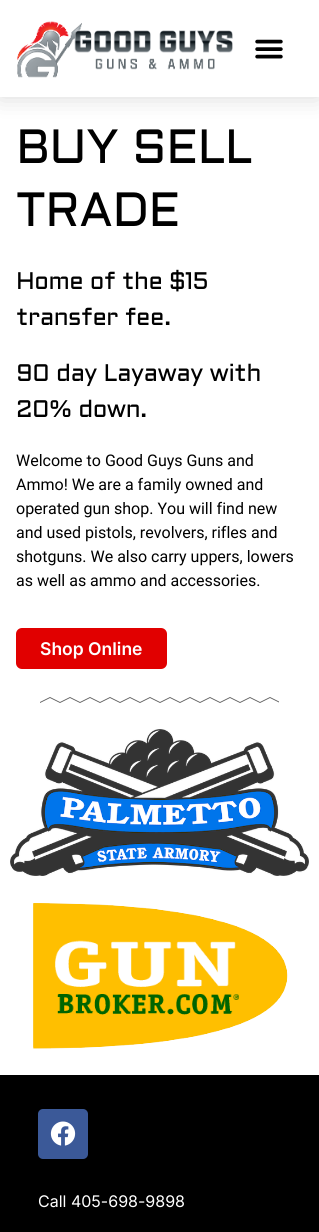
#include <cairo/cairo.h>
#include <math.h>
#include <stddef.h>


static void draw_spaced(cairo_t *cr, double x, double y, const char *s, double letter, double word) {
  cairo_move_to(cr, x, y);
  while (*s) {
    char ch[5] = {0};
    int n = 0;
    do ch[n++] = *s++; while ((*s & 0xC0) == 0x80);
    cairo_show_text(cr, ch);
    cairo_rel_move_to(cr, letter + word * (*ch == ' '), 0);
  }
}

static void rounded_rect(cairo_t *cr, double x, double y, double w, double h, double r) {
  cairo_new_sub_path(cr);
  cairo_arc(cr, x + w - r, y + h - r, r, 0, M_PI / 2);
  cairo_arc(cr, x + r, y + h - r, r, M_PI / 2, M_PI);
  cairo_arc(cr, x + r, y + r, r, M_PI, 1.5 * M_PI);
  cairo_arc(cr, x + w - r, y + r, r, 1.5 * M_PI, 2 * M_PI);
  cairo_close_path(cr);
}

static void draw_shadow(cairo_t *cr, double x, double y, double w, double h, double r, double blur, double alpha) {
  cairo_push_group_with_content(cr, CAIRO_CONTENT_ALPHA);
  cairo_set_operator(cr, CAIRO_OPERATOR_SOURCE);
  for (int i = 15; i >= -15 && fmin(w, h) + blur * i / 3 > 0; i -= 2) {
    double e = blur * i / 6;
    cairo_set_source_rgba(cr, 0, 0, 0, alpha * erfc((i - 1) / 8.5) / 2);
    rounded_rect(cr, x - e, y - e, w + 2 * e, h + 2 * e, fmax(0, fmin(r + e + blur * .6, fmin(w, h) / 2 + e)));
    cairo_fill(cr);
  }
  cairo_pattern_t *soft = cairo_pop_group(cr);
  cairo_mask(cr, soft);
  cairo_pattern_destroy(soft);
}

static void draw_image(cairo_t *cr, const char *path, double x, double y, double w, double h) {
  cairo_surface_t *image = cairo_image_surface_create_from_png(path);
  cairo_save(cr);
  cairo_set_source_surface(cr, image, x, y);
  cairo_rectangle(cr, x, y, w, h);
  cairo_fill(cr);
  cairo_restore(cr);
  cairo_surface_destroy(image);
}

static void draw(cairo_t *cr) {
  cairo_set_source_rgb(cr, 1, 1, 1);
  cairo_paint(cr);
  cairo_set_source_rgb(cr, 0, 0, 0);
  draw_shadow(cr, 0, 0, 319, 97, 0, 12, 0.15);
  cairo_set_source_rgb(cr, 1, 1, 1);
  cairo_rectangle(cr, 0, 0, 319, 97);
  cairo_fill(cr);
  draw_image(cr, "images/1.png", 17, 21, 216, 57);
  draw_image(cr, "images/2.png", 255, 39, 28, 20);
  cairo_set_source_rgb(cr, 225 / 255.0, 0, 0);
  rounded_rect(cr, 16, 628, 151, 41, 6);
  cairo_fill(cr);
  draw_image(cr, "images/3.png", 40, 697, 239, 6);
  draw_image(cr, "images/4.png", 10, 729, 299, 147);
  draw_image(cr, "images/5.png", 33, 903, 255, 146);
  cairo_set_source_rgb(cr, 0, 0, 0);
  cairo_rectangle(cr, 0, 1075, 319, 157);
  cairo_fill(cr);
  cairo_set_source_rgb(cr, 59 / 255.0, 89 / 255.0, 152 / 255.0);
  rounded_rect(cr, 38, 1109, 50, 50, 5);
  cairo_fill(cr);
  draw_image(cr, "images/6.png", 50, 1121, 26, 25);
  cairo_select_font_face(cr, "Aldrich", CAIRO_FONT_SLANT_NORMAL, CAIRO_FONT_WEIGHT_NORMAL);
  cairo_set_font_size(cr, 48);
  cairo_set_source_rgb(cr, 0, 0, 0);
  draw_spaced(cr, 16, 163, "BUY SELL", -0.5, 0);
  draw_spaced(cr, 16, 226, "TRADE", -0.5, 0);
  cairo_set_font_size(cr, 24);
  draw_spaced(cr, 16, 289, "Home of the $15", -0.5, 0);
  draw_spaced(cr, 16, 325, "transfer fee.", -0.5, 0);
  draw_spaced(cr, 16, 381, "90 day Layaway with", -0.5, 0);
  draw_spaced(cr, 16, 417, "20% down.", -0.5, 0);
  cairo_select_font_face(cr, "Roboto", CAIRO_FONT_SLANT_NORMAL, CAIRO_FONT_WEIGHT_NORMAL);
  cairo_set_font_size(cr, 16);
  cairo_move_to(cr, 16, 466);
  cairo_show_text(cr, "Welcome to Good Guys Guns and");
  cairo_move_to(cr, 16, 490);
  cairo_show_text(cr, "Ammo! We are a family owned and");
  cairo_move_to(cr, 16, 514);
  cairo_show_text(cr, "operated gun shop. You will find new");
  cairo_move_to(cr, 16, 538);
  cairo_show_text(cr, "and used pistols, revolvers, rifles and");
  cairo_move_to(cr, 16, 562);
  cairo_show_text(cr, "shotguns. We also carry uppers, lowers");
  cairo_move_to(cr, 16, 586);
  cairo_show_text(cr, "as well as ammo and accessories.");
  cairo_select_font_face(cr, "Inter SemiBold", CAIRO_FONT_SLANT_NORMAL, CAIRO_FONT_WEIGHT_NORMAL);
  cairo_set_font_size(cr, 17.5);
  cairo_set_source_rgb(cr, 1, 1, 1);
  cairo_move_to(cr, 40, 655);
  cairo_show_text(cr, "Shop Online");
  cairo_select_font_face(cr, "Inter", CAIRO_FONT_SLANT_NORMAL, CAIRO_FONT_WEIGHT_NORMAL);
  cairo_set_font_size(cr, 16);
  cairo_move_to(cr, 38, 1207);
  cairo_show_text(cr, "Call 405-698-9898");
}

int main(void) {
  cairo_surface_t *surface = cairo_image_surface_create(CAIRO_FORMAT_RGB24, 319, 1232);
  cairo_t *cr = cairo_create(surface);
  cairo_font_options_t *options = cairo_font_options_create();
  cairo_font_options_set_hint_metrics(options, CAIRO_HINT_METRICS_OFF);
  cairo_font_options_set_hint_style(options, CAIRO_HINT_STYLE_NONE);
  cairo_set_font_options(cr, options);
  cairo_set_miter_limit(cr, 4);
  draw(cr);
  cairo_surface_write_to_png(surface, "out.png");
  cairo_font_options_destroy(options);
  cairo_destroy(cr);
  cairo_surface_destroy(surface);
  return 0;
}
